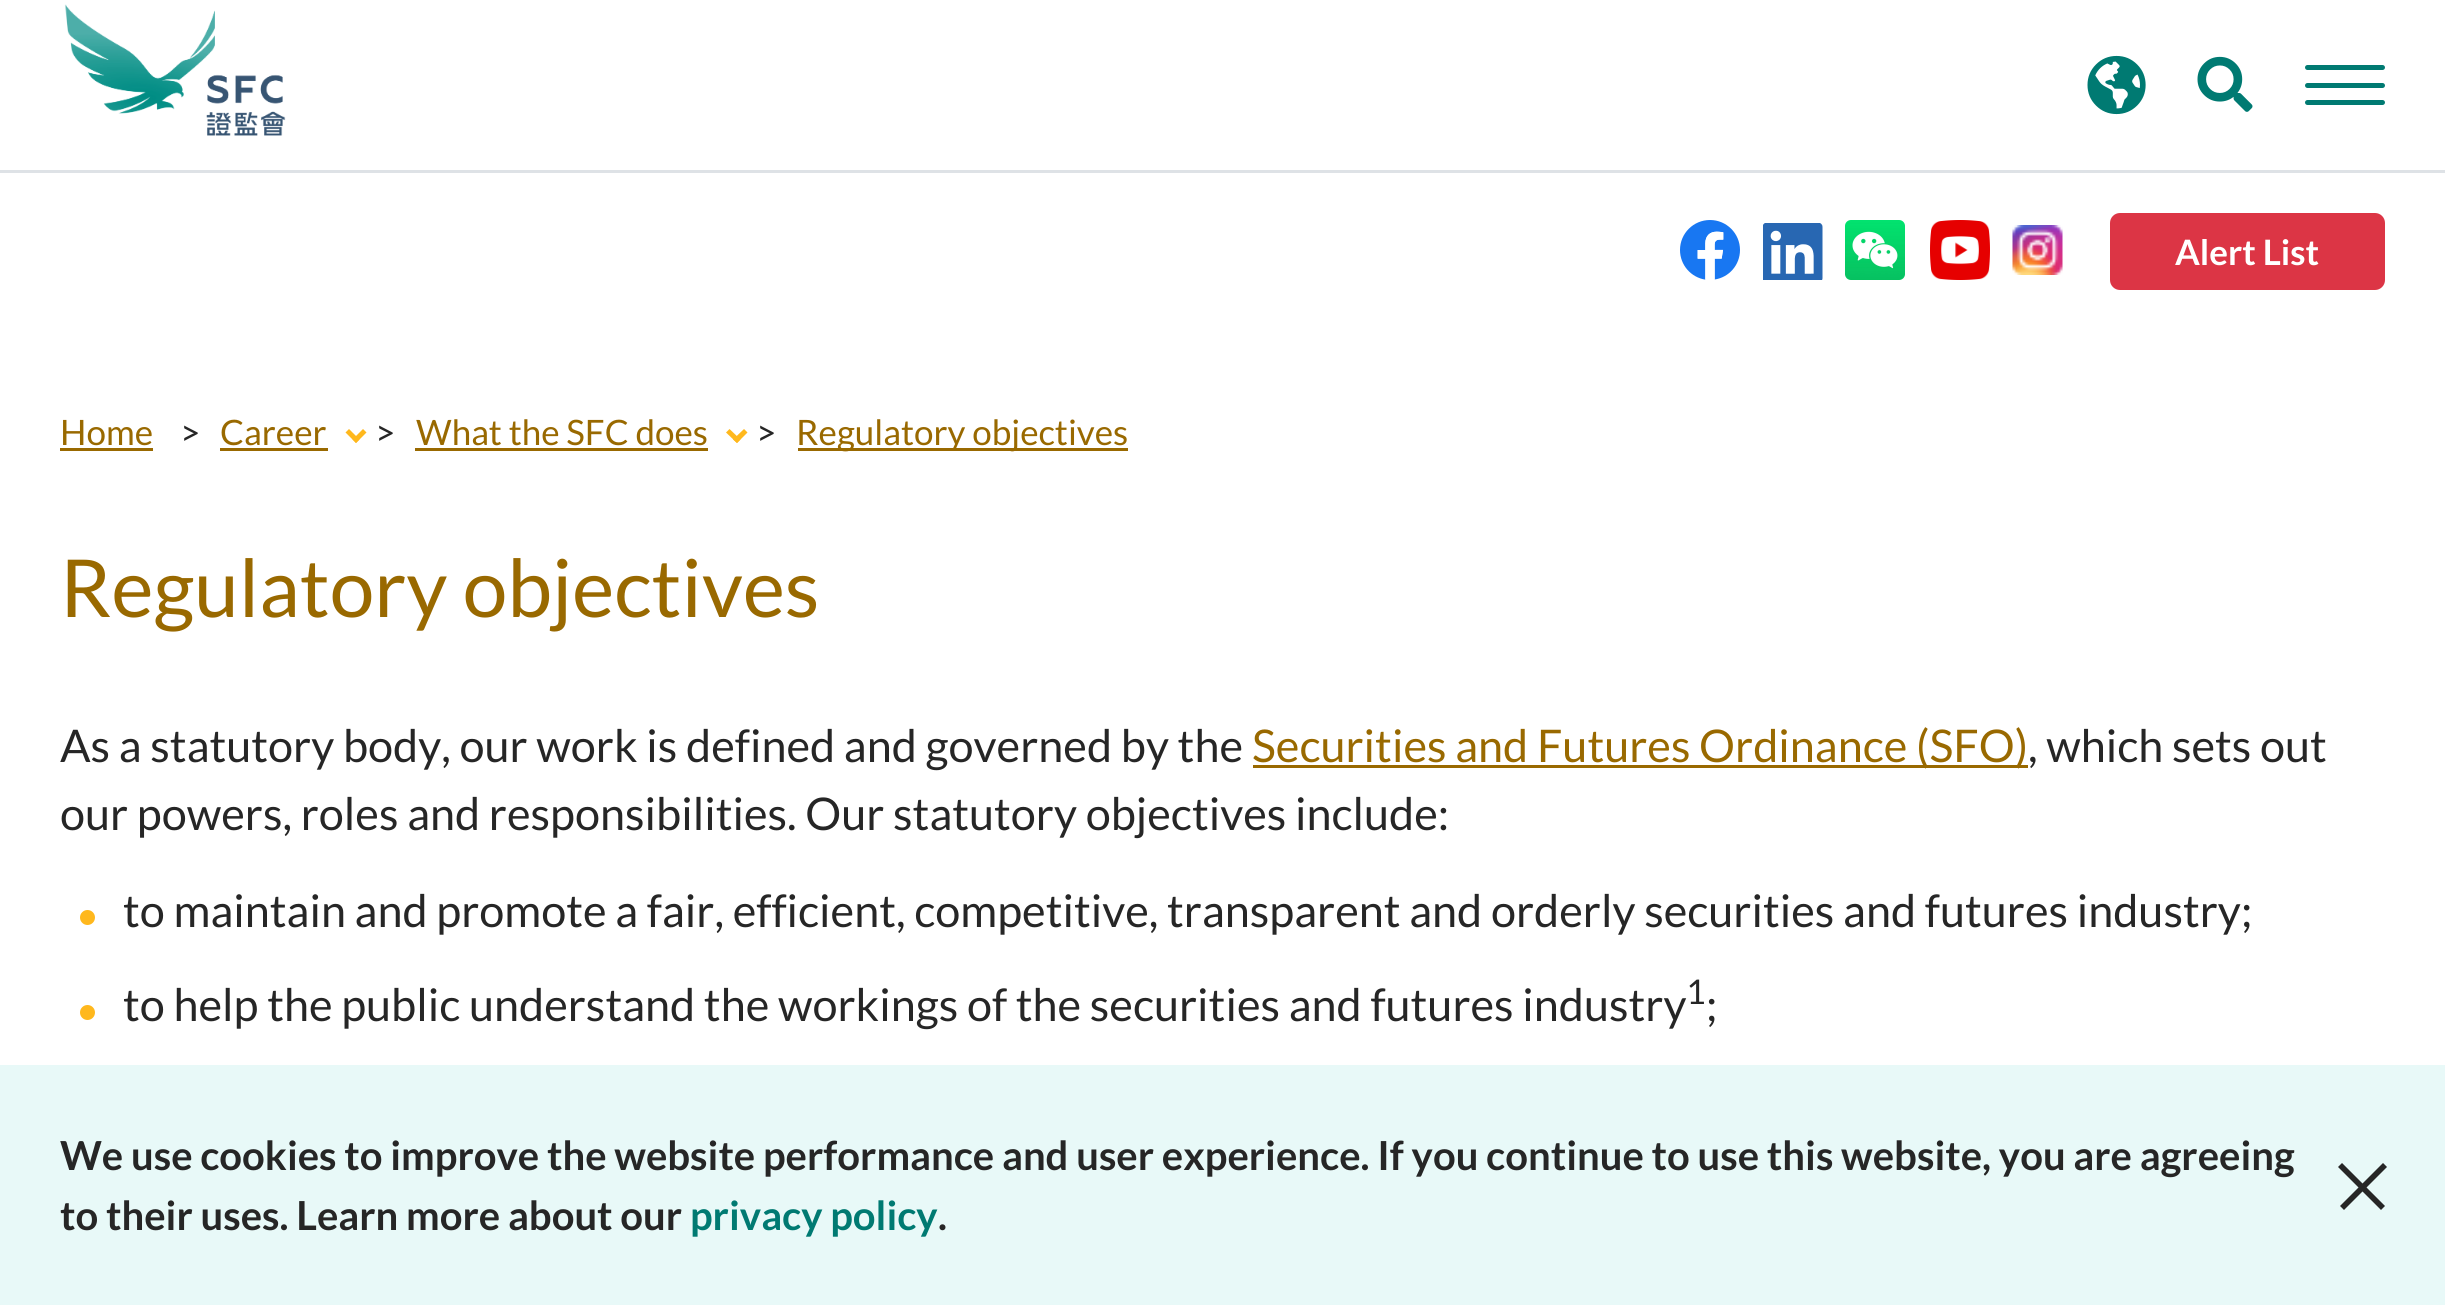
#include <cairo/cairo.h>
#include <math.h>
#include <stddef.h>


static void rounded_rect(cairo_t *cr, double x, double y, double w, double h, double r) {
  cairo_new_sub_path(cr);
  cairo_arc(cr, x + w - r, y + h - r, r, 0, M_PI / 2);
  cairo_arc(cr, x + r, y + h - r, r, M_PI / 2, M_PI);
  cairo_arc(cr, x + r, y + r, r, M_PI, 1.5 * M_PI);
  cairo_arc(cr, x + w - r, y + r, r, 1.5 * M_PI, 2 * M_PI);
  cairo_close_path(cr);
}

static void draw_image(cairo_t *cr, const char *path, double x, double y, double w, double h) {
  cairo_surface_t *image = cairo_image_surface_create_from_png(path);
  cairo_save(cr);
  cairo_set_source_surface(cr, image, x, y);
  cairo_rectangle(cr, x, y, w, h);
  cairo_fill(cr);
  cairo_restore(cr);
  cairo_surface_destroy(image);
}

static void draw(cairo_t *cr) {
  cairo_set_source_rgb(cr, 1, 1, 1);
  cairo_paint(cr);
  draw_image(cr, "images/1.png", 64, 4, 222, 132);
  draw_image(cr, "images/2.png", 2087, 55, 59, 60);
  draw_image(cr, "images/3.png", 2197, 56, 56, 56);
  cairo_set_source_rgb(cr, 0, 122 / 255.0, 114 / 255.0);
  rounded_rect(cr, 2305, 65, 80, 5, 2.5);
  cairo_fill(cr);
  rounded_rect(cr, 2305, 83, 80, 5, 2.5);
  cairo_fill(cr);
  rounded_rect(cr, 2305, 100, 80, 5, 2.5);
  cairo_fill(cr);
  cairo_set_source_rgb(cr, 222 / 255.0, 226 / 255.0, 230 / 255.0);
  cairo_rectangle(cr, 0, 170, 2445, 3);
  cairo_fill(cr);
  draw_image(cr, "images/4.png", 1680, 220, 60, 60);
  draw_image(cr, "images/5.png", 1763, 223, 60, 57);
  draw_image(cr, "images/6.png", 1845, 220, 60, 60);
  draw_image(cr, "images/7.png", 1930, 220, 60, 60);
  draw_image(cr, "images/8.png", 2012, 225, 51, 50);
  cairo_set_source_rgb(cr, 220 / 255.0, 53 / 255.0, 69 / 255.0);
  rounded_rect(cr, 2111.5, 214.5, 272, 74, 8.5);
  cairo_fill_preserve(cr);
  cairo_set_line_width(cr, 3);
  cairo_stroke(cr);
  cairo_set_source_rgb(cr, 153 / 255.0, 105 / 255.0, 0);
  cairo_rectangle(cr, 60, 448, 93, 3);
  cairo_fill(cr);
  cairo_rectangle(cr, 220, 448, 108, 3);
  cairo_fill(cr);
  cairo_set_source_rgb(cr, 1, 184 / 255.0, 29 / 255.0);
  cairo_new_path(cr);
  cairo_move_to(cr, 363, 429);
  cairo_line_to(cr, 366.5, 432.5);
  cairo_line_to(cr, 356, 443);
  cairo_line_to(cr, 352.5, 439.5);
  cairo_close_path(cr);
  cairo_fill(cr);
  cairo_new_path(cr);
  cairo_move_to(cr, 349, 429);
  cairo_line_to(cr, 359.5, 439.5);
  cairo_line_to(cr, 356, 443);
  cairo_line_to(cr, 345.5, 432.5);
  cairo_close_path(cr);
  cairo_fill(cr);
  cairo_set_source_rgb(cr, 153 / 255.0, 105 / 255.0, 0);
  cairo_rectangle(cr, 415, 448, 293, 3);
  cairo_fill(cr);
  cairo_set_source_rgb(cr, 1, 184 / 255.0, 29 / 255.0);
  cairo_new_path(cr);
  cairo_move_to(cr, 744, 429);
  cairo_line_to(cr, 747.5, 432.5);
  cairo_line_to(cr, 737, 443);
  cairo_line_to(cr, 733, 439.5);
  cairo_close_path(cr);
  cairo_fill(cr);
  cairo_new_path(cr);
  cairo_move_to(cr, 729.5, 429);
  cairo_line_to(cr, 740.5, 439.5);
  cairo_line_to(cr, 737, 443);
  cairo_line_to(cr, 726, 432.5);
  cairo_close_path(cr);
  cairo_fill(cr);
  cairo_set_source_rgb(cr, 153 / 255.0, 105 / 255.0, 0);
  cairo_rectangle(cr, 798, 448, 330, 3);
  cairo_fill(cr);
  cairo_rectangle(cr, 1253, 765, 775, 3);
  cairo_fill(cr);
  cairo_set_source_rgb(cr, 1, 184 / 255.0, 29 / 255.0);
  cairo_arc(cr, 87.5, 917.5, 7.5, 0, 2 * M_PI);
  cairo_fill(cr);
  cairo_arc(cr, 87.5, 1012.5, 7.5, 0, 2 * M_PI);
  cairo_fill(cr);
  cairo_set_source_rgb(cr, 232 / 255.0, 249 / 255.0, 248 / 255.0);
  cairo_rectangle(cr, 0, 1065, 2445, 240);
  cairo_fill(cr);
  cairo_set_source_rgb(cr, 38 / 255.0, 38 / 255.0, 38 / 255.0);
  cairo_new_path(cr);
  cairo_move_to(cr, 2342, 1163);
  cairo_line_to(cr, 2385, 1206);
  cairo_line_to(cr, 2381, 1210);
  cairo_line_to(cr, 2338, 1167);
  cairo_close_path(cr);
  cairo_fill(cr);
  cairo_new_path(cr);
  cairo_move_to(cr, 2340, 1206);
  cairo_line_to(cr, 2383, 1163);
  cairo_line_to(cr, 2387, 1167);
  cairo_line_to(cr, 2344, 1210);
  cairo_close_path(cr);
  cairo_fill(cr);
  cairo_select_font_face(cr, "Lato", CAIRO_FONT_SLANT_NORMAL, CAIRO_FONT_WEIGHT_BOLD);
  cairo_set_font_size(cr, 35);
  cairo_set_source_rgb(cr, 1, 1, 1);
  cairo_move_to(cr, 2175, 265);
  cairo_show_text(cr, "Alert List");
  cairo_select_font_face(cr, "Lato", CAIRO_FONT_SLANT_NORMAL, CAIRO_FONT_WEIGHT_NORMAL);
  cairo_set_source_rgb(cr, 153 / 255.0, 105 / 255.0, 0);
  cairo_move_to(cr, 60, 445);
  cairo_show_text(cr, "Home");
  cairo_set_source_rgb(cr, 38 / 255.0, 38 / 255.0, 38 / 255.0);
  cairo_move_to(cr, 180, 445);
  cairo_show_text(cr, ">");
  cairo_set_source_rgb(cr, 153 / 255.0, 105 / 255.0, 0);
  cairo_move_to(cr, 220, 445);
  cairo_show_text(cr, "Career");
  cairo_set_source_rgb(cr, 38 / 255.0, 38 / 255.0, 38 / 255.0);
  cairo_move_to(cr, 375, 445);
  cairo_show_text(cr, ">");
  cairo_set_source_rgb(cr, 153 / 255.0, 105 / 255.0, 0);
  cairo_move_to(cr, 416, 445);
  cairo_show_text(cr, "What the SFC does");
  cairo_set_source_rgb(cr, 38 / 255.0, 38 / 255.0, 38 / 255.0);
  cairo_move_to(cr, 756, 445);
  cairo_show_text(cr, ">");
  cairo_set_source_rgb(cr, 153 / 255.0, 105 / 255.0, 0);
  cairo_move_to(cr, 796, 445);
  cairo_show_text(cr, "Regulatory objectives");
  cairo_set_font_size(cr, 80);
  cairo_move_to(cr, 60, 617);
  cairo_show_text(cr, "Regulatory objectives");
  cairo_set_font_size(cr, 45);
  cairo_set_source_rgb(cr, 38 / 255.0, 38 / 255.0, 38 / 255.0);
  cairo_move_to(cr, 60, 762);
  cairo_show_text(cr, "As a statutory body, our work is defined and governed by the");
  cairo_set_source_rgb(cr, 153 / 255.0, 105 / 255.0, 0);
  cairo_move_to(cr, 1252, 762);
  cairo_show_text(cr, "Securities and Futures Ordinance (SFO)");
  cairo_set_source_rgb(cr, 38 / 255.0, 38 / 255.0, 38 / 255.0);
  cairo_move_to(cr, 2028, 762);
  cairo_show_text(cr, ", which sets out");
  cairo_move_to(cr, 60, 830);
  cairo_show_text(cr, "our powers, roles and responsibilities. Our statutory objectives include:");
  cairo_move_to(cr, 123, 927);
  cairo_show_text(cr, "to maintain and promote a fair, efficient, competitive, transparent and orderly securities and futures industry;");
  cairo_move_to(cr, 123, 1021);
  cairo_show_text(cr, "to help the public understand the workings of the securities and futures industry");
  cairo_set_font_size(cr, 34);
  cairo_move_to(cr, 1686, 1004);
  cairo_show_text(cr, "1");
  cairo_set_font_size(cr, 45);
  cairo_move_to(cr, 1706, 1021);
  cairo_show_text(cr, ";");
  cairo_select_font_face(cr, "Lato", CAIRO_FONT_SLANT_NORMAL, CAIRO_FONT_WEIGHT_BOLD);
  cairo_set_font_size(cr, 40);
  cairo_move_to(cr, 60, 1170);
  cairo_show_text(cr, "We use cookies to improve the website performance and user experience. If you continue to use this website, you are agreeing");
  cairo_move_to(cr, 60, 1230);
  cairo_show_text(cr, "to their uses. Learn more about our");
  cairo_set_source_rgb(cr, 0, 122 / 255.0, 114 / 255.0);
  cairo_move_to(cr, 690, 1230);
  cairo_show_text(cr, "privacy policy");
  cairo_set_source_rgb(cr, 38 / 255.0, 38 / 255.0, 38 / 255.0);
  cairo_move_to(cr, 938, 1230);
  cairo_show_text(cr, ".");
}

int main(void) {
  cairo_surface_t *surface = cairo_image_surface_create(CAIRO_FORMAT_RGB24, 2445, 1305);
  cairo_t *cr = cairo_create(surface);
  cairo_font_options_t *options = cairo_font_options_create();
  cairo_font_options_set_hint_metrics(options, CAIRO_HINT_METRICS_OFF);
  cairo_font_options_set_hint_style(options, CAIRO_HINT_STYLE_NONE);
  cairo_set_font_options(cr, options);
  cairo_set_miter_limit(cr, 4);
  draw(cr);
  cairo_surface_write_to_png(surface, "out.png");
  cairo_font_options_destroy(options);
  cairo_destroy(cr);
  cairo_surface_destroy(surface);
  return 0;
}
